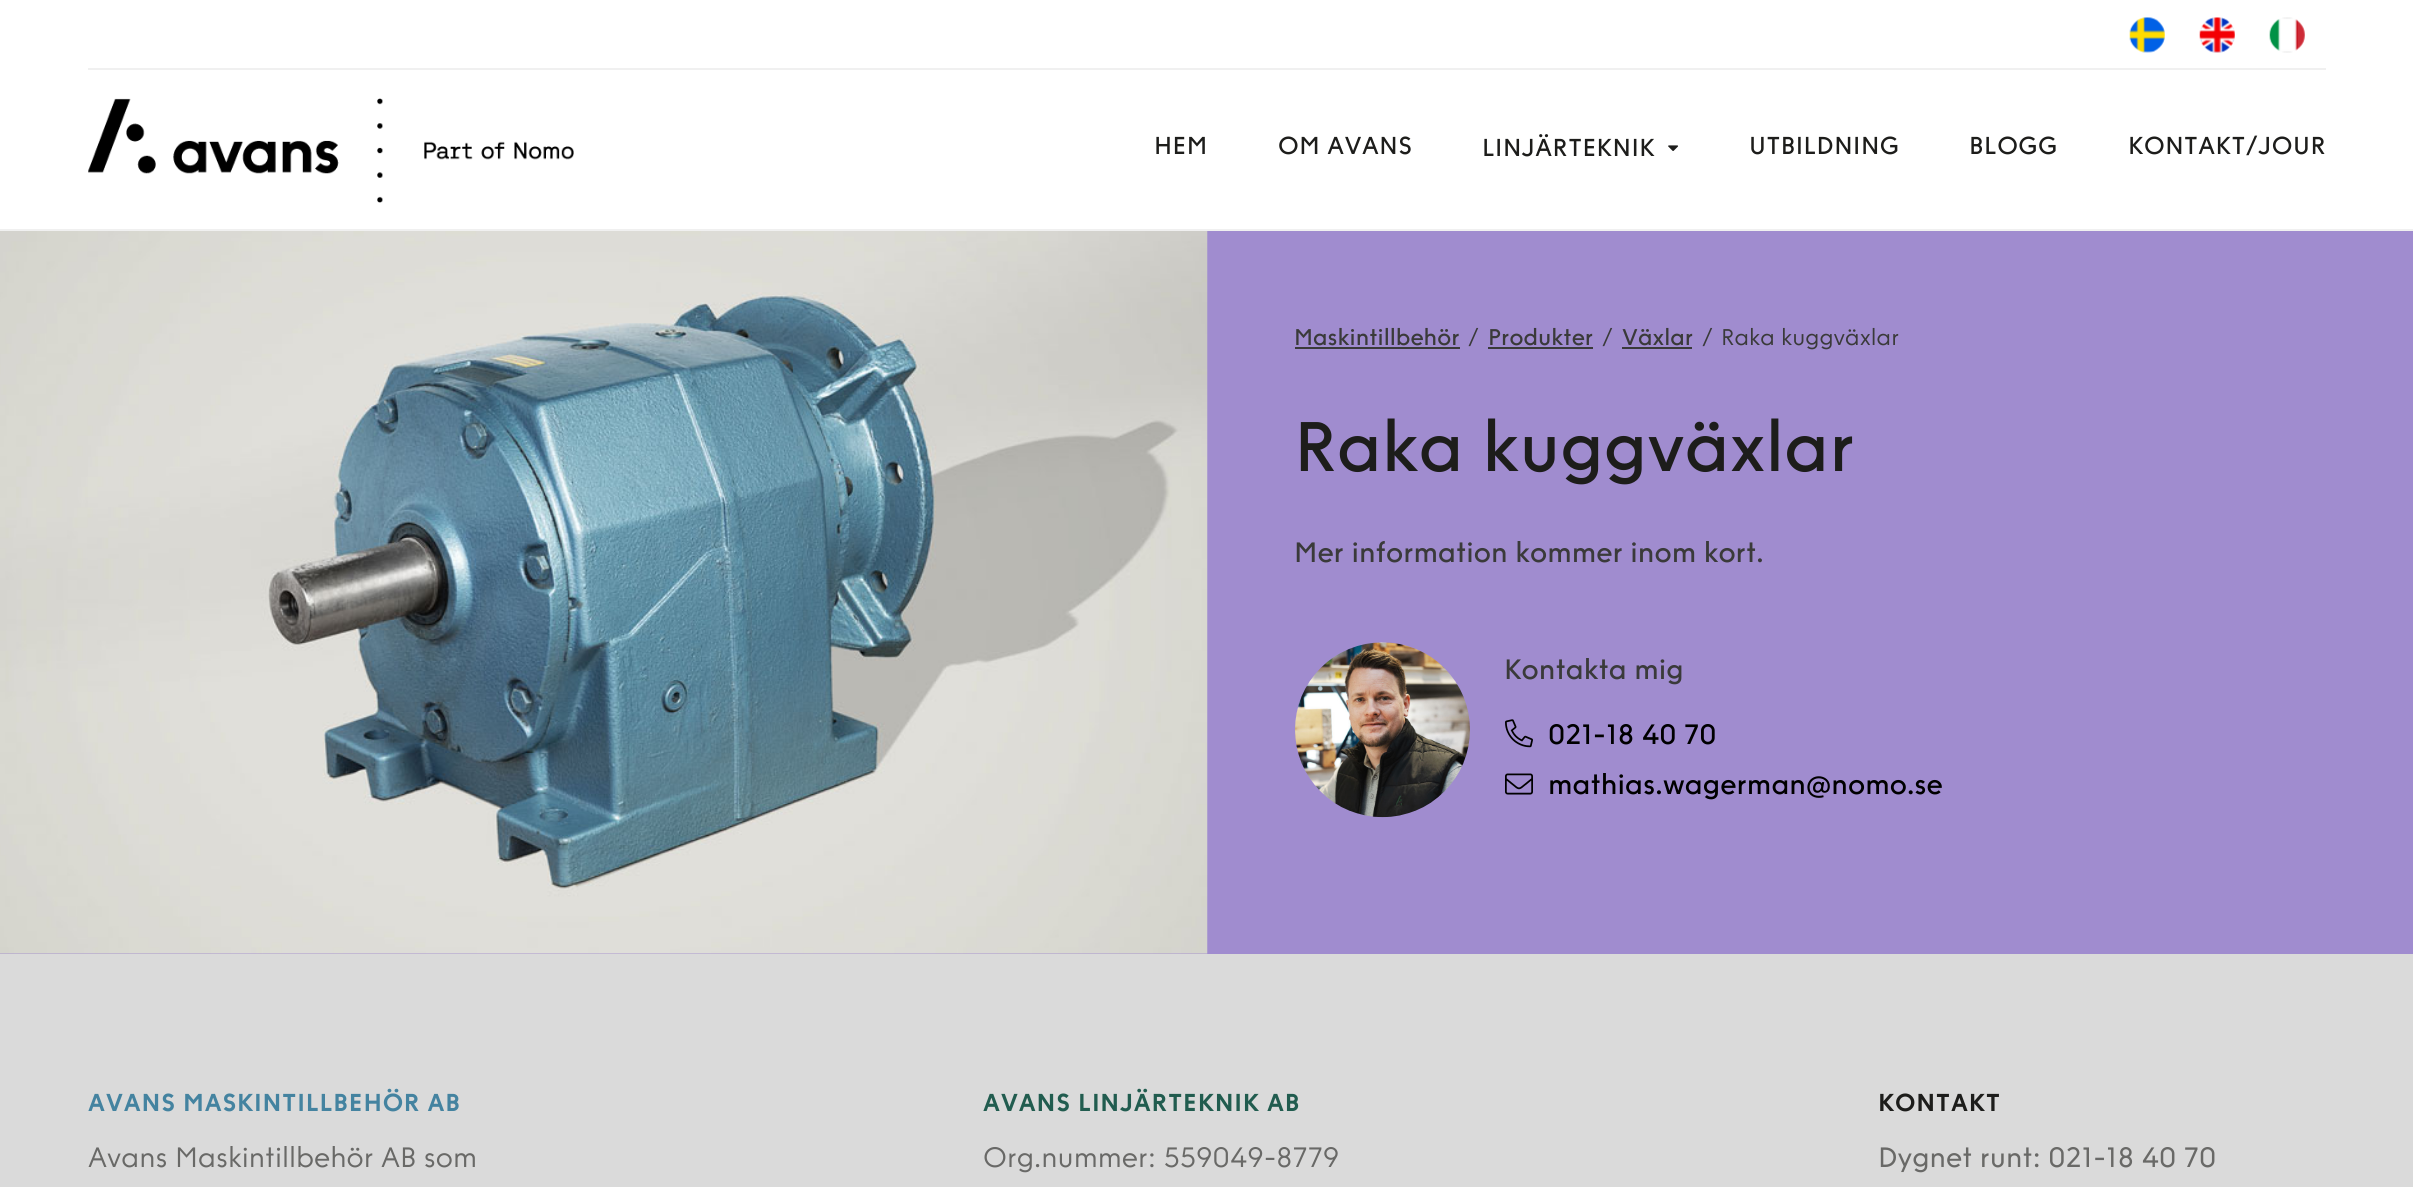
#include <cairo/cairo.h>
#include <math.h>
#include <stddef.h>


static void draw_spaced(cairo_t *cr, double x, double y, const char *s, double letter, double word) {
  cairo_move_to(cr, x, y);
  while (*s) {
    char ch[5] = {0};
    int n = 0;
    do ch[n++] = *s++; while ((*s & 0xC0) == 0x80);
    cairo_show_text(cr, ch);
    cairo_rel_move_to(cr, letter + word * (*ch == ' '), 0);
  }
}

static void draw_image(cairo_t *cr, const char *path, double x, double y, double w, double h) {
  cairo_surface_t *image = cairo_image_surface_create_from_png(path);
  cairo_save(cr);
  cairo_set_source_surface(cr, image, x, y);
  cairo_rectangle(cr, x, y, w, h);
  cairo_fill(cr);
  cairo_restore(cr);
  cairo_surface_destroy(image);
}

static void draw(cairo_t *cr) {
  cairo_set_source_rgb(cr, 1, 1, 1);
  cairo_paint(cr);
  cairo_set_source_rgb(cr, 240 / 255.0, 240 / 255.0, 240 / 255.0);
  cairo_rectangle(cr, 0, 229, 2413, 2);
  cairo_fill(cr);
  cairo_rectangle(cr, 88, 68, 2238, 2);
  cairo_fill(cr);
  draw_image(cr, "images/1.png", 2129, 17, 36, 36);
  draw_image(cr, "images/2.png", 2199, 17, 36, 36);
  draw_image(cr, "images/3.png", 2269, 17, 36, 36);
  draw_image(cr, "images/4.png", 88, 98, 486, 105);
  draw_image(cr, "images/5.png", 1668, 145, 11, 6);
  cairo_set_source_rgb(cr, 160 / 255.0, 140 / 255.0, 207 / 255.0);
  cairo_rectangle(cr, 0, 231, 2413, 723);
  cairo_fill(cr);
  draw_image(cr, "images/6.png", 0, 231, 1208, 723);
  cairo_set_source_rgb(cr, 58 / 255.0, 58 / 255.0, 58 / 255.0);
  cairo_rectangle(cr, 1295, 347, 165, 2);
  cairo_fill(cr);
  cairo_rectangle(cr, 1488, 347, 105, 2);
  cairo_fill(cr);
  cairo_rectangle(cr, 1622, 347, 70, 2);
  cairo_fill(cr);
  draw_image(cr, "images/7.png", 1295, 642, 175, 176);
  draw_image(cr, "images/8.png", 1505, 719, 28, 29);
  draw_image(cr, "images/9.png", 1505, 773, 28, 22);
  cairo_set_source_rgb(cr, 218 / 255.0, 218 / 255.0, 218 / 255.0);
  cairo_rectangle(cr, 0, 954, 2413, 233);
  cairo_fill(cr);
  cairo_select_font_face(cr, "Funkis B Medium", CAIRO_FONT_SLANT_NORMAL, CAIRO_FONT_WEIGHT_NORMAL);
  cairo_set_font_size(cr, 24.5);
  cairo_set_source_rgb(cr, 29 / 255.0, 29 / 255.0, 27 / 255.0);
  draw_spaced(cr, 1154, 154, "HEM", 0.5, 0);
  draw_spaced(cr, 1278, 154, "OM AVANS", 0.5, 0);
  draw_spaced(cr, 1482, 156, "LINJÄRTEKNIK", 0.5, 0);
  draw_spaced(cr, 1749, 154, "UTBILDNING", 0.5, 0);
  draw_spaced(cr, 1969, 154, "BLOGG", 0.5, 0);
  draw_spaced(cr, 2128, 154, "KONTAKT/JOUR", 0.5, 0);
  cairo_set_font_size(cr, 22.75);
  cairo_set_source_rgb(cr, 58 / 255.0, 58 / 255.0, 58 / 255.0);
  cairo_move_to(cr, 1294, 345);
  cairo_show_text(cr, "Maskintillbehör");
  cairo_select_font_face(cr, "Funkis B Light", CAIRO_FONT_SLANT_NORMAL, CAIRO_FONT_WEIGHT_NORMAL);
  cairo_move_to(cr, 1468, 345);
  cairo_show_text(cr, "/");
  cairo_select_font_face(cr, "Funkis B Medium", CAIRO_FONT_SLANT_NORMAL, CAIRO_FONT_WEIGHT_NORMAL);
  cairo_move_to(cr, 1488, 345);
  cairo_show_text(cr, "Produkter");
  cairo_select_font_face(cr, "Funkis B Light", CAIRO_FONT_SLANT_NORMAL, CAIRO_FONT_WEIGHT_NORMAL);
  cairo_move_to(cr, 1602, 345);
  cairo_show_text(cr, "/");
  cairo_select_font_face(cr, "Funkis B Medium", CAIRO_FONT_SLANT_NORMAL, CAIRO_FONT_WEIGHT_NORMAL);
  cairo_move_to(cr, 1622, 345);
  cairo_show_text(cr, "Växlar");
  cairo_select_font_face(cr, "Funkis B Light", CAIRO_FONT_SLANT_NORMAL, CAIRO_FONT_WEIGHT_NORMAL);
  cairo_move_to(cr, 1702, 345);
  cairo_show_text(cr, "/");
  cairo_move_to(cr, 1721, 345);
  cairo_show_text(cr, "Raka kuggväxlar");
  cairo_select_font_face(cr, "Funkis B Medium", CAIRO_FONT_SLANT_NORMAL, CAIRO_FONT_WEIGHT_NORMAL);
  cairo_set_font_size(cr, 70);
  cairo_set_source_rgb(cr, 29 / 255.0, 29 / 255.0, 27 / 255.0);
  cairo_move_to(cr, 1294, 471);
  cairo_show_text(cr, "Raka kuggväxlar");
  cairo_set_font_size(cr, 28);
  cairo_set_source_rgb(cr, 58 / 255.0, 58 / 255.0, 58 / 255.0);
  cairo_move_to(cr, 1294, 562);
  cairo_show_text(cr, "Mer information kommer inom kort.");
  cairo_move_to(cr, 1504, 679);
  cairo_show_text(cr, "Kontakta mig");
  cairo_set_source_rgb(cr, 0, 0, 0);
  cairo_move_to(cr, 1548, 744);
  cairo_show_text(cr, "021-18 40 70");
  cairo_move_to(cr, 1548, 794);
  cairo_show_text(cr, "mathias.wagerman@nomo.se");
  cairo_select_font_face(cr, "Funkis B", CAIRO_FONT_SLANT_NORMAL, CAIRO_FONT_WEIGHT_BOLD);
  cairo_set_font_size(cr, 24.5);
  cairo_set_source_rgb(cr, 68 / 255.0, 131 / 255.0, 160 / 255.0);
  draw_spaced(cr, 88, 1111, "AVANS MASKINTILLBEHÖR AB", 0.75, 0);
  cairo_select_font_face(cr, "Funkis B Light", CAIRO_FONT_SLANT_NORMAL, CAIRO_FONT_WEIGHT_NORMAL);
  cairo_set_font_size(cr, 28);
  cairo_set_source_rgb(cr, 105 / 255.0, 105 / 255.0, 103 / 255.0);
  cairo_move_to(cr, 88, 1167);
  cairo_show_text(cr, "Avans Maskintillbehör AB som");
  cairo_select_font_face(cr, "Funkis B", CAIRO_FONT_SLANT_NORMAL, CAIRO_FONT_WEIGHT_BOLD);
  cairo_set_font_size(cr, 24.5);
  cairo_set_source_rgb(cr, 33 / 255.0, 92 / 255.0, 79 / 255.0);
  draw_spaced(cr, 983, 1111, "AVANS LINJÄRTEKNIK AB", 0.75, 0);
  cairo_select_font_face(cr, "Funkis B Light", CAIRO_FONT_SLANT_NORMAL, CAIRO_FONT_WEIGHT_NORMAL);
  cairo_set_font_size(cr, 28);
  cairo_set_source_rgb(cr, 105 / 255.0, 105 / 255.0, 103 / 255.0);
  cairo_move_to(cr, 983, 1167);
  cairo_show_text(cr, "Org.nummer: 559049-8779");
  cairo_select_font_face(cr, "Funkis B", CAIRO_FONT_SLANT_NORMAL, CAIRO_FONT_WEIGHT_BOLD);
  cairo_set_font_size(cr, 24.5);
  cairo_set_source_rgb(cr, 29 / 255.0, 29 / 255.0, 27 / 255.0);
  draw_spaced(cr, 1878, 1111, "KONTAKT", 0.75, 0);
  cairo_select_font_face(cr, "Funkis B", CAIRO_FONT_SLANT_NORMAL, CAIRO_FONT_WEIGHT_NORMAL);
  cairo_set_font_size(cr, 28);
  cairo_set_source_rgb(cr, 105 / 255.0, 105 / 255.0, 103 / 255.0);
  cairo_move_to(cr, 1878, 1167);
  cairo_show_text(cr, "Dygnet runt: 021-18 40 70");
}

int main(void) {
  cairo_surface_t *surface = cairo_image_surface_create(CAIRO_FORMAT_RGB24, 2413, 1187);
  cairo_t *cr = cairo_create(surface);
  cairo_font_options_t *options = cairo_font_options_create();
  cairo_font_options_set_hint_metrics(options, CAIRO_HINT_METRICS_OFF);
  cairo_font_options_set_hint_style(options, CAIRO_HINT_STYLE_NONE);
  cairo_set_font_options(cr, options);
  cairo_set_miter_limit(cr, 4);
  draw(cr);
  cairo_surface_write_to_png(surface, "out.png");
  cairo_font_options_destroy(options);
  cairo_destroy(cr);
  cairo_surface_destroy(surface);
  return 0;
}
